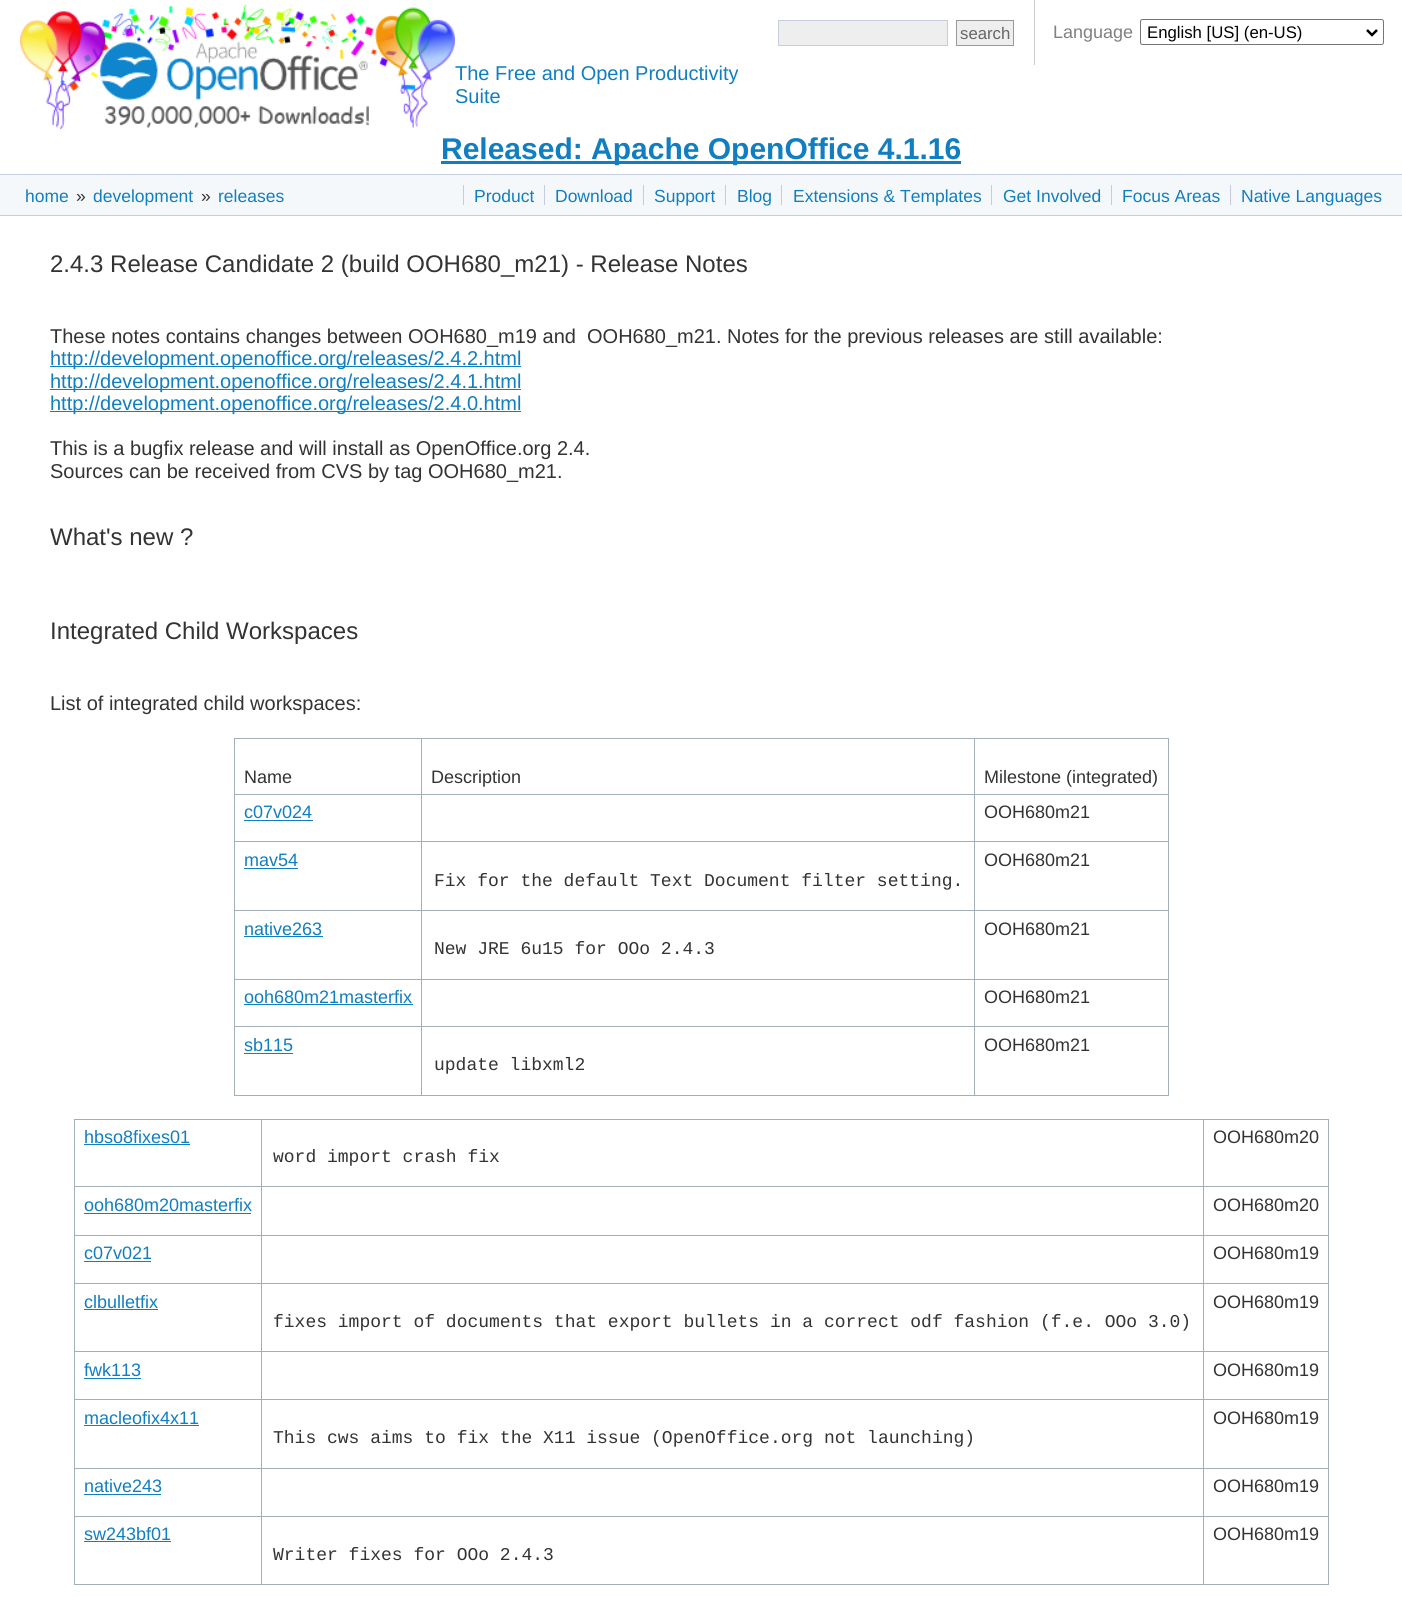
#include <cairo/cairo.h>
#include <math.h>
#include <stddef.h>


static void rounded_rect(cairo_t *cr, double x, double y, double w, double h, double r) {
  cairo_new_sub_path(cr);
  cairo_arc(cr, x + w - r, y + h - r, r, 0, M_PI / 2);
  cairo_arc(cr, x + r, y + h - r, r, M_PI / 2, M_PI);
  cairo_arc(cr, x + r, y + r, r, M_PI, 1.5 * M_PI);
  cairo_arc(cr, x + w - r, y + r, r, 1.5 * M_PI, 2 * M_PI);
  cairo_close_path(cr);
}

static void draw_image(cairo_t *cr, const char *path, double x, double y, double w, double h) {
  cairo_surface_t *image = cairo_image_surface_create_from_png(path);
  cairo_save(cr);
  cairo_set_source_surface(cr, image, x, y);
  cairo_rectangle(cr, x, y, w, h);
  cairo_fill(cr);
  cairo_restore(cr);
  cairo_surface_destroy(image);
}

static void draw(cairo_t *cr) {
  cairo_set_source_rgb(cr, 1, 1, 1);
  cairo_paint(cr);
  draw_image(cr, "images/1.png", 20, 5, 435, 125);
  cairo_set_source_rgb(cr, 238 / 255.0, 238 / 255.0, 238 / 255.0);
  cairo_rectangle(cr, 778.5, 20.5, 169, 25);
  cairo_fill_preserve(cr);
  cairo_set_source_rgb(cr, 198 / 255.0, 203 / 255.0, 221 / 255.0);
  cairo_set_line_width(cr, 1);
  cairo_stroke(cr);
  cairo_set_source_rgb(cr, 238 / 255.0, 238 / 255.0, 238 / 255.0);
  cairo_rectangle(cr, 956.5, 20.5, 57, 25);
  cairo_fill_preserve(cr);
  cairo_set_source_rgb(cr, 153 / 255.0, 153 / 255.0, 153 / 255.0);
  cairo_stroke(cr);
  cairo_set_source_rgb(cr, 204 / 255.0, 204 / 255.0, 204 / 255.0);
  cairo_rectangle(cr, 1034, 0, 1, 65);
  cairo_fill(cr);
  rounded_rect(cr, 1140.5, 19.5, 243, 25, 2);
  cairo_set_source_rgb(cr, 118 / 255.0, 118 / 255.0, 118 / 255.0);
  cairo_stroke(cr);
  cairo_new_path(cr);
  cairo_move_to(cr, 1367, 30);
  cairo_line_to(cr, 1372, 35);
  cairo_line_to(cr, 1377, 30);
  cairo_set_source_rgb(cr, 0, 0, 0);
  cairo_set_line_width(cr, 2.5);
  cairo_stroke(cr);
  cairo_set_source_rgb(cr, 16 / 255.0, 126 / 255.0, 192 / 255.0);
  cairo_rectangle(cr, 441, 161, 520, 3);
  cairo_fill(cr);
  cairo_set_source_rgb(cr, 245 / 255.0, 248 / 255.0, 250 / 255.0);
  cairo_rectangle(cr, 0, 175, 1402, 40);
  cairo_fill(cr);
  cairo_set_source_rgb(cr, 198 / 255.0, 203 / 255.0, 221 / 255.0);
  cairo_rectangle(cr, 0, 174, 1402, 1);
  cairo_fill(cr);
  cairo_rectangle(cr, 0, 215, 1402, 1);
  cairo_fill(cr);
  cairo_rectangle(cr, 463, 185, 1, 20);
  cairo_fill(cr);
  cairo_rectangle(cr, 544, 185, 1, 20);
  cairo_fill(cr);
  cairo_rectangle(cr, 643, 185, 1, 20);
  cairo_fill(cr);
  cairo_rectangle(cr, 725, 185, 1, 20);
  cairo_fill(cr);
  cairo_rectangle(cr, 781, 185, 1, 20);
  cairo_fill(cr);
  cairo_rectangle(cr, 991, 185, 1, 20);
  cairo_fill(cr);
  cairo_rectangle(cr, 1111, 185, 1, 20);
  cairo_fill(cr);
  cairo_rectangle(cr, 1230, 185, 1, 20);
  cairo_fill(cr);
  cairo_set_source_rgb(cr, 16 / 255.0, 126 / 255.0, 192 / 255.0);
  cairo_rectangle(cr, 50, 366, 471, 1);
  cairo_fill(cr);
  cairo_rectangle(cr, 50, 389, 471, 1);
  cairo_fill(cr);
  cairo_rectangle(cr, 50, 411, 471, 1);
  cairo_fill(cr);
  cairo_set_source_rgb(cr, 163 / 255.0, 175 / 255.0, 182 / 255.0);
  cairo_rectangle(cr, 974, 738, 195, 1);
  cairo_fill(cr);
  cairo_rectangle(cr, 974, 794, 195, 1);
  cairo_fill(cr);
  cairo_rectangle(cr, 974, 841, 195, 1);
  cairo_fill(cr);
  cairo_rectangle(cr, 974, 910, 195, 1);
  cairo_fill(cr);
  cairo_rectangle(cr, 974, 979, 195, 1);
  cairo_fill(cr);
  cairo_rectangle(cr, 974, 1026, 195, 1);
  cairo_fill(cr);
  cairo_rectangle(cr, 1168, 1026, 1, 70);
  cairo_fill(cr);
  cairo_rectangle(cr, 974, 1095, 195, 1);
  cairo_fill(cr);
  cairo_rectangle(cr, 974, 1026, 1, 70);
  cairo_fill(cr);
  cairo_rectangle(cr, 421, 1026, 554, 1);
  cairo_fill(cr);
  cairo_rectangle(cr, 974, 979, 1, 49);
  cairo_fill(cr);
  cairo_rectangle(cr, 421, 979, 554, 1);
  cairo_fill(cr);
  cairo_rectangle(cr, 974, 910, 1, 70);
  cairo_fill(cr);
  cairo_rectangle(cr, 421, 910, 554, 1);
  cairo_fill(cr);
  cairo_rectangle(cr, 974, 841, 1, 70);
  cairo_fill(cr);
  cairo_rectangle(cr, 421, 841, 554, 1);
  cairo_fill(cr);
  cairo_rectangle(cr, 974, 794, 1, 49);
  cairo_fill(cr);
  cairo_rectangle(cr, 421, 794, 554, 1);
  cairo_fill(cr);
  cairo_rectangle(cr, 974, 738, 1, 57);
  cairo_fill(cr);
  cairo_rectangle(cr, 421, 738, 554, 1);
  cairo_fill(cr);
  cairo_rectangle(cr, 421, 1095, 554, 1);
  cairo_fill(cr);
  cairo_rectangle(cr, 421, 1026, 1, 70);
  cairo_fill(cr);
  cairo_rectangle(cr, 234, 1026, 189, 1);
  cairo_fill(cr);
  cairo_rectangle(cr, 421, 979, 1, 49);
  cairo_fill(cr);
  cairo_rectangle(cr, 234, 979, 189, 1);
  cairo_fill(cr);
  cairo_rectangle(cr, 421, 910, 1, 70);
  cairo_fill(cr);
  cairo_rectangle(cr, 234, 910, 189, 1);
  cairo_fill(cr);
  cairo_rectangle(cr, 421, 841, 1, 70);
  cairo_fill(cr);
  cairo_rectangle(cr, 234, 841, 189, 1);
  cairo_fill(cr);
  cairo_rectangle(cr, 421, 794, 1, 49);
  cairo_fill(cr);
  cairo_rectangle(cr, 234, 794, 189, 1);
  cairo_fill(cr);
  cairo_rectangle(cr, 421, 738, 1, 57);
  cairo_fill(cr);
  cairo_rectangle(cr, 234, 738, 189, 1);
  cairo_fill(cr);
  cairo_rectangle(cr, 234, 1095, 189, 1);
  cairo_fill(cr);
  cairo_rectangle(cr, 234, 1026, 1, 70);
  cairo_fill(cr);
  cairo_rectangle(cr, 234, 979, 1, 49);
  cairo_fill(cr);
  cairo_rectangle(cr, 234, 910, 1, 70);
  cairo_fill(cr);
  cairo_rectangle(cr, 234, 841, 1, 70);
  cairo_fill(cr);
  cairo_rectangle(cr, 234, 794, 1, 49);
  cairo_fill(cr);
  cairo_rectangle(cr, 234, 738, 1, 57);
  cairo_fill(cr);
  cairo_rectangle(cr, 1168, 979, 1, 49);
  cairo_fill(cr);
  cairo_rectangle(cr, 1168, 910, 1, 70);
  cairo_fill(cr);
  cairo_rectangle(cr, 1168, 841, 1, 70);
  cairo_fill(cr);
  cairo_rectangle(cr, 1168, 794, 1, 49);
  cairo_fill(cr);
  cairo_rectangle(cr, 1168, 738, 1, 57);
  cairo_fill(cr);
  cairo_set_source_rgb(cr, 16 / 255.0, 126 / 255.0, 192 / 255.0);
  cairo_rectangle(cr, 244, 820, 69, 1);
  cairo_fill(cr);
  cairo_rectangle(cr, 244, 868, 54, 1);
  cairo_fill(cr);
  cairo_rectangle(cr, 244, 936, 79, 1);
  cairo_fill(cr);
  cairo_rectangle(cr, 244, 1004, 169, 1);
  cairo_fill(cr);
  cairo_rectangle(cr, 244, 1053, 49, 1);
  cairo_fill(cr);
  cairo_set_source_rgb(cr, 163 / 255.0, 175 / 255.0, 182 / 255.0);
  cairo_rectangle(cr, 1203, 1119, 126, 1);
  cairo_fill(cr);
  cairo_rectangle(cr, 1203, 1186, 126, 1);
  cairo_fill(cr);
  cairo_rectangle(cr, 1203, 1235, 126, 1);
  cairo_fill(cr);
  cairo_rectangle(cr, 1203, 1283, 126, 1);
  cairo_fill(cr);
  cairo_rectangle(cr, 1203, 1351, 126, 1);
  cairo_fill(cr);
  cairo_rectangle(cr, 1203, 1399, 126, 1);
  cairo_fill(cr);
  cairo_rectangle(cr, 1203, 1468, 126, 1);
  cairo_fill(cr);
  cairo_rectangle(cr, 1203, 1516, 126, 1);
  cairo_fill(cr);
  cairo_rectangle(cr, 1328, 1516, 1, 69);
  cairo_fill(cr);
  cairo_rectangle(cr, 1203, 1584, 126, 1);
  cairo_fill(cr);
  cairo_rectangle(cr, 1203, 1516, 1, 69);
  cairo_fill(cr);
  cairo_rectangle(cr, 261, 1516, 943, 1);
  cairo_fill(cr);
  cairo_rectangle(cr, 1203, 1468, 1, 50);
  cairo_fill(cr);
  cairo_rectangle(cr, 261, 1468, 943, 1);
  cairo_fill(cr);
  cairo_rectangle(cr, 1203, 1399, 1, 70);
  cairo_fill(cr);
  cairo_rectangle(cr, 261, 1399, 943, 1);
  cairo_fill(cr);
  cairo_rectangle(cr, 1203, 1351, 1, 49);
  cairo_fill(cr);
  cairo_rectangle(cr, 261, 1351, 943, 1);
  cairo_fill(cr);
  cairo_rectangle(cr, 1203, 1283, 1, 70);
  cairo_fill(cr);
  cairo_rectangle(cr, 261, 1283, 943, 1);
  cairo_fill(cr);
  cairo_rectangle(cr, 1203, 1235, 1, 49);
  cairo_fill(cr);
  cairo_rectangle(cr, 261, 1235, 943, 1);
  cairo_fill(cr);
  cairo_rectangle(cr, 1203, 1186, 1, 50);
  cairo_fill(cr);
  cairo_rectangle(cr, 261, 1186, 943, 1);
  cairo_fill(cr);
  cairo_rectangle(cr, 1203, 1119, 1, 69);
  cairo_fill(cr);
  cairo_rectangle(cr, 261, 1119, 943, 1);
  cairo_fill(cr);
  cairo_rectangle(cr, 261, 1584, 943, 1);
  cairo_fill(cr);
  cairo_rectangle(cr, 261, 1516, 1, 69);
  cairo_fill(cr);
  cairo_rectangle(cr, 74, 1516, 189, 1);
  cairo_fill(cr);
  cairo_rectangle(cr, 261, 1468, 1, 50);
  cairo_fill(cr);
  cairo_rectangle(cr, 74, 1468, 189, 1);
  cairo_fill(cr);
  cairo_rectangle(cr, 261, 1399, 1, 70);
  cairo_fill(cr);
  cairo_rectangle(cr, 74, 1399, 189, 1);
  cairo_fill(cr);
  cairo_rectangle(cr, 261, 1351, 1, 49);
  cairo_fill(cr);
  cairo_rectangle(cr, 74, 1351, 189, 1);
  cairo_fill(cr);
  cairo_rectangle(cr, 261, 1283, 1, 70);
  cairo_fill(cr);
  cairo_rectangle(cr, 74, 1283, 189, 1);
  cairo_fill(cr);
  cairo_rectangle(cr, 261, 1235, 1, 49);
  cairo_fill(cr);
  cairo_rectangle(cr, 74, 1235, 189, 1);
  cairo_fill(cr);
  cairo_rectangle(cr, 261, 1186, 1, 50);
  cairo_fill(cr);
  cairo_rectangle(cr, 74, 1186, 189, 1);
  cairo_fill(cr);
  cairo_rectangle(cr, 261, 1119, 1, 69);
  cairo_fill(cr);
  cairo_rectangle(cr, 74, 1119, 189, 1);
  cairo_fill(cr);
  cairo_rectangle(cr, 74, 1584, 189, 1);
  cairo_fill(cr);
  cairo_rectangle(cr, 74, 1516, 1, 69);
  cairo_fill(cr);
  cairo_rectangle(cr, 74, 1468, 1, 50);
  cairo_fill(cr);
  cairo_rectangle(cr, 74, 1399, 1, 70);
  cairo_fill(cr);
  cairo_rectangle(cr, 74, 1351, 1, 49);
  cairo_fill(cr);
  cairo_rectangle(cr, 74, 1283, 1, 70);
  cairo_fill(cr);
  cairo_rectangle(cr, 74, 1235, 1, 49);
  cairo_fill(cr);
  cairo_rectangle(cr, 74, 1186, 1, 50);
  cairo_fill(cr);
  cairo_rectangle(cr, 74, 1119, 1, 69);
  cairo_fill(cr);
  cairo_set_source_rgb(cr, 16 / 255.0, 126 / 255.0, 192 / 255.0);
  cairo_rectangle(cr, 84, 1144, 106, 1);
  cairo_fill(cr);
  cairo_set_source_rgb(cr, 163 / 255.0, 175 / 255.0, 182 / 255.0);
  cairo_rectangle(cr, 1328, 1468, 1, 50);
  cairo_fill(cr);
  cairo_rectangle(cr, 1328, 1399, 1, 70);
  cairo_fill(cr);
  cairo_rectangle(cr, 1328, 1351, 1, 49);
  cairo_fill(cr);
  cairo_rectangle(cr, 1328, 1283, 1, 70);
  cairo_fill(cr);
  cairo_rectangle(cr, 1328, 1235, 1, 49);
  cairo_fill(cr);
  cairo_rectangle(cr, 1328, 1186, 1, 50);
  cairo_fill(cr);
  cairo_rectangle(cr, 1328, 1119, 1, 69);
  cairo_fill(cr);
  cairo_set_source_rgb(cr, 16 / 255.0, 126 / 255.0, 192 / 255.0);
  cairo_rectangle(cr, 84, 1213, 167, 1);
  cairo_fill(cr);
  cairo_rectangle(cr, 84, 1261, 67, 1);
  cairo_fill(cr);
  cairo_rectangle(cr, 84, 1309, 74, 1);
  cairo_fill(cr);
  cairo_rectangle(cr, 84, 1378, 57, 1);
  cairo_fill(cr);
  cairo_rectangle(cr, 84, 1425, 115, 1);
  cairo_fill(cr);
  cairo_rectangle(cr, 84, 1494, 77, 1);
  cairo_fill(cr);
  cairo_rectangle(cr, 84, 1541, 87, 1);
  cairo_fill(cr);
  cairo_select_font_face(cr, "Liberation Sans", CAIRO_FONT_SLANT_NORMAL, CAIRO_FONT_WEIGHT_NORMAL);
  cairo_set_font_size(cr, 16.75);
  cairo_set_source_rgb(cr, 102 / 255.0, 102 / 255.0, 102 / 255.0);
  cairo_move_to(cr, 960, 39);
  cairo_show_text(cr, "search");
  cairo_set_font_size(cr, 18);
  cairo_set_source_rgb(cr, 128 / 255.0, 128 / 255.0, 128 / 255.0);
  cairo_move_to(cr, 1053, 38);
  cairo_show_text(cr, "Language");
  cairo_set_font_size(cr, 16.75);
  cairo_set_source_rgb(cr, 0, 0, 0);
  cairo_move_to(cr, 1147, 38);
  cairo_show_text(cr, "English [US] (en-US)");
  cairo_set_font_size(cr, 20);
  cairo_set_source_rgb(cr, 16 / 255.0, 126 / 255.0, 192 / 255.0);
  cairo_move_to(cr, 455, 80);
  cairo_show_text(cr, "The Free and Open Productivity");
  cairo_move_to(cr, 455, 103);
  cairo_show_text(cr, "Suite");
  cairo_select_font_face(cr, "Liberation Sans", CAIRO_FONT_SLANT_NORMAL, CAIRO_FONT_WEIGHT_BOLD);
  cairo_set_font_size(cr, 30);
  cairo_move_to(cr, 441, 159);
  cairo_show_text(cr, "Released: Apache OpenOffice 4.1.16");
  cairo_select_font_face(cr, "Liberation Sans", CAIRO_FONT_SLANT_NORMAL, CAIRO_FONT_WEIGHT_NORMAL);
  cairo_set_font_size(cr, 17.5);
  cairo_move_to(cr, 25, 202);
  cairo_show_text(cr, "home");
  cairo_set_source_rgb(cr, 51 / 255.0, 51 / 255.0, 51 / 255.0);
  cairo_move_to(cr, 76, 202);
  cairo_show_text(cr, "»");
  cairo_set_source_rgb(cr, 16 / 255.0, 126 / 255.0, 192 / 255.0);
  cairo_move_to(cr, 93, 202);
  cairo_show_text(cr, "development");
  cairo_set_source_rgb(cr, 51 / 255.0, 51 / 255.0, 51 / 255.0);
  cairo_move_to(cr, 201, 202);
  cairo_show_text(cr, "»");
  cairo_set_source_rgb(cr, 16 / 255.0, 126 / 255.0, 192 / 255.0);
  cairo_move_to(cr, 218, 202);
  cairo_show_text(cr, "releases");
  cairo_move_to(cr, 474, 202);
  cairo_show_text(cr, "Product");
  cairo_move_to(cr, 555, 202);
  cairo_show_text(cr, "Download");
  cairo_move_to(cr, 654, 202);
  cairo_show_text(cr, "Support");
  cairo_move_to(cr, 737, 202);
  cairo_show_text(cr, "Blog");
  cairo_move_to(cr, 793, 202);
  cairo_show_text(cr, "Extensions & Templates");
  cairo_move_to(cr, 1003, 202);
  cairo_show_text(cr, "Get Involved");
  cairo_move_to(cr, 1122, 202);
  cairo_show_text(cr, "Focus Areas");
  cairo_move_to(cr, 1241, 202);
  cairo_show_text(cr, "Native Languages");
  cairo_set_font_size(cr, 24);
  cairo_set_source_rgb(cr, 51 / 255.0, 51 / 255.0, 51 / 255.0);
  cairo_move_to(cr, 50, 272);
  cairo_show_text(cr, "2.4.3 Release Candidate 2 (build OOH680_m21) - Release Notes");
  cairo_set_font_size(cr, 20);
  cairo_move_to(cr, 50, 343);
  cairo_show_text(cr, "These notes contains changes between OOH680_m19 and  OOH680_m21. Notes for the previous releases are still available:");
  cairo_set_source_rgb(cr, 16 / 255.0, 126 / 255.0, 192 / 255.0);
  cairo_move_to(cr, 50, 365);
  cairo_show_text(cr, "http://development.openoffice.org/releases/2.4.2.html");
  cairo_move_to(cr, 50, 388);
  cairo_show_text(cr, "http://development.openoffice.org/releases/2.4.1.html");
  cairo_move_to(cr, 50, 410);
  cairo_show_text(cr, "http://development.openoffice.org/releases/2.4.0.html");
  cairo_set_source_rgb(cr, 51 / 255.0, 51 / 255.0, 51 / 255.0);
  cairo_move_to(cr, 50, 455);
  cairo_show_text(cr, "This is a bugfix release and will install as OpenOffice.org 2.4.");
  cairo_move_to(cr, 50, 478);
  cairo_show_text(cr, "Sources can be received from CVS by tag OOH680_m21.");
  cairo_set_font_size(cr, 24);
  cairo_move_to(cr, 50, 545);
  cairo_show_text(cr, "What's new ?");
  cairo_move_to(cr, 50, 639);
  cairo_show_text(cr, "Integrated Child Workspaces");
  cairo_set_font_size(cr, 20);
  cairo_move_to(cr, 50, 710);
  cairo_show_text(cr, "List of integrated child workspaces:");
  cairo_set_font_size(cr, 18);
  cairo_move_to(cr, 244, 783);
  cairo_show_text(cr, "Name");
  cairo_move_to(cr, 431, 783);
  cairo_show_text(cr, "Description");
  cairo_move_to(cr, 984, 783);
  cairo_show_text(cr, "Milestone (integrated)");
  cairo_set_source_rgb(cr, 16 / 255.0, 126 / 255.0, 192 / 255.0);
  cairo_move_to(cr, 244, 818);
  cairo_show_text(cr, "c07v024");
  cairo_set_source_rgb(cr, 51 / 255.0, 51 / 255.0, 51 / 255.0);
  cairo_move_to(cr, 984, 818);
  cairo_show_text(cr, "OOH680m21");
  cairo_set_source_rgb(cr, 16 / 255.0, 126 / 255.0, 192 / 255.0);
  cairo_move_to(cr, 244, 866);
  cairo_show_text(cr, "mav54");
  cairo_set_source_rgb(cr, 51 / 255.0, 51 / 255.0, 51 / 255.0);
  cairo_move_to(cr, 984, 866);
  cairo_show_text(cr, "OOH680m21");
  cairo_select_font_face(cr, "Liberation Mono", CAIRO_FONT_SLANT_NORMAL, CAIRO_FONT_WEIGHT_NORMAL);
  cairo_move_to(cr, 434, 886);
  cairo_show_text(cr, "Fix for the default Text Document filter setting.");
  cairo_select_font_face(cr, "Liberation Sans", CAIRO_FONT_SLANT_NORMAL, CAIRO_FONT_WEIGHT_NORMAL);
  cairo_set_source_rgb(cr, 16 / 255.0, 126 / 255.0, 192 / 255.0);
  cairo_move_to(cr, 244, 935);
  cairo_show_text(cr, "native263");
  cairo_set_source_rgb(cr, 51 / 255.0, 51 / 255.0, 51 / 255.0);
  cairo_move_to(cr, 984, 935);
  cairo_show_text(cr, "OOH680m21");
  cairo_select_font_face(cr, "Liberation Mono", CAIRO_FONT_SLANT_NORMAL, CAIRO_FONT_WEIGHT_NORMAL);
  cairo_move_to(cr, 434, 954);
  cairo_show_text(cr, "New JRE 6u15 for OOo 2.4.3");
  cairo_select_font_face(cr, "Liberation Sans", CAIRO_FONT_SLANT_NORMAL, CAIRO_FONT_WEIGHT_NORMAL);
  cairo_set_source_rgb(cr, 16 / 255.0, 126 / 255.0, 192 / 255.0);
  cairo_move_to(cr, 244, 1003);
  cairo_show_text(cr, "ooh680m21masterfix");
  cairo_set_source_rgb(cr, 51 / 255.0, 51 / 255.0, 51 / 255.0);
  cairo_move_to(cr, 984, 1003);
  cairo_show_text(cr, "OOH680m21");
  cairo_set_source_rgb(cr, 16 / 255.0, 126 / 255.0, 192 / 255.0);
  cairo_move_to(cr, 244, 1051);
  cairo_show_text(cr, "sb115");
  cairo_set_source_rgb(cr, 51 / 255.0, 51 / 255.0, 51 / 255.0);
  cairo_move_to(cr, 984, 1051);
  cairo_show_text(cr, "OOH680m21");
  cairo_select_font_face(cr, "Liberation Mono", CAIRO_FONT_SLANT_NORMAL, CAIRO_FONT_WEIGHT_NORMAL);
  cairo_move_to(cr, 434, 1070);
  cairo_show_text(cr, "update libxml2");
  cairo_select_font_face(cr, "Liberation Sans", CAIRO_FONT_SLANT_NORMAL, CAIRO_FONT_WEIGHT_NORMAL);
  cairo_set_source_rgb(cr, 16 / 255.0, 126 / 255.0, 192 / 255.0);
  cairo_move_to(cr, 84, 1143);
  cairo_show_text(cr, "hbso8fixes01");
  cairo_set_source_rgb(cr, 51 / 255.0, 51 / 255.0, 51 / 255.0);
  cairo_move_to(cr, 1213, 1143);
  cairo_show_text(cr, "OOH680m20");
  cairo_select_font_face(cr, "Liberation Mono", CAIRO_FONT_SLANT_NORMAL, CAIRO_FONT_WEIGHT_NORMAL);
  cairo_move_to(cr, 273, 1162);
  cairo_show_text(cr, "word import crash fix");
  cairo_select_font_face(cr, "Liberation Sans", CAIRO_FONT_SLANT_NORMAL, CAIRO_FONT_WEIGHT_NORMAL);
  cairo_set_source_rgb(cr, 16 / 255.0, 126 / 255.0, 192 / 255.0);
  cairo_move_to(cr, 84, 1211);
  cairo_show_text(cr, "ooh680m20masterfix");
  cairo_set_source_rgb(cr, 51 / 255.0, 51 / 255.0, 51 / 255.0);
  cairo_move_to(cr, 1213, 1211);
  cairo_show_text(cr, "OOH680m20");
  cairo_set_source_rgb(cr, 16 / 255.0, 126 / 255.0, 192 / 255.0);
  cairo_move_to(cr, 84, 1259);
  cairo_show_text(cr, "c07v021");
  cairo_set_source_rgb(cr, 51 / 255.0, 51 / 255.0, 51 / 255.0);
  cairo_move_to(cr, 1213, 1259);
  cairo_show_text(cr, "OOH680m19");
  cairo_set_source_rgb(cr, 16 / 255.0, 126 / 255.0, 192 / 255.0);
  cairo_move_to(cr, 84, 1308);
  cairo_show_text(cr, "clbulletfix");
  cairo_set_source_rgb(cr, 51 / 255.0, 51 / 255.0, 51 / 255.0);
  cairo_move_to(cr, 1213, 1308);
  cairo_show_text(cr, "OOH680m19");
  cairo_select_font_face(cr, "Liberation Mono", CAIRO_FONT_SLANT_NORMAL, CAIRO_FONT_WEIGHT_NORMAL);
  cairo_move_to(cr, 273, 1327);
  cairo_show_text(cr, "fixes import of documents that export bullets in a correct odf fashion (f.e. OOo 3.0)");
  cairo_select_font_face(cr, "Liberation Sans", CAIRO_FONT_SLANT_NORMAL, CAIRO_FONT_WEIGHT_NORMAL);
  cairo_set_source_rgb(cr, 16 / 255.0, 126 / 255.0, 192 / 255.0);
  cairo_move_to(cr, 84, 1376);
  cairo_show_text(cr, "fwk113");
  cairo_set_source_rgb(cr, 51 / 255.0, 51 / 255.0, 51 / 255.0);
  cairo_move_to(cr, 1213, 1376);
  cairo_show_text(cr, "OOH680m19");
  cairo_set_source_rgb(cr, 16 / 255.0, 126 / 255.0, 192 / 255.0);
  cairo_move_to(cr, 84, 1424);
  cairo_show_text(cr, "macleofix4x11");
  cairo_set_source_rgb(cr, 51 / 255.0, 51 / 255.0, 51 / 255.0);
  cairo_move_to(cr, 1213, 1424);
  cairo_show_text(cr, "OOH680m19");
  cairo_select_font_face(cr, "Liberation Mono", CAIRO_FONT_SLANT_NORMAL, CAIRO_FONT_WEIGHT_NORMAL);
  cairo_move_to(cr, 273, 1443);
  cairo_show_text(cr, "This cws aims to fix the X11 issue (OpenOffice.org not launching)");
  cairo_select_font_face(cr, "Liberation Sans", CAIRO_FONT_SLANT_NORMAL, CAIRO_FONT_WEIGHT_NORMAL);
  cairo_set_source_rgb(cr, 16 / 255.0, 126 / 255.0, 192 / 255.0);
  cairo_move_to(cr, 84, 1492);
  cairo_show_text(cr, "native243");
  cairo_set_source_rgb(cr, 51 / 255.0, 51 / 255.0, 51 / 255.0);
  cairo_move_to(cr, 1213, 1492);
  cairo_show_text(cr, "OOH680m19");
  cairo_set_source_rgb(cr, 16 / 255.0, 126 / 255.0, 192 / 255.0);
  cairo_move_to(cr, 84, 1540);
  cairo_show_text(cr, "sw243bf01");
  cairo_set_source_rgb(cr, 51 / 255.0, 51 / 255.0, 51 / 255.0);
  cairo_move_to(cr, 1213, 1540);
  cairo_show_text(cr, "OOH680m19");
  cairo_select_font_face(cr, "Liberation Mono", CAIRO_FONT_SLANT_NORMAL, CAIRO_FONT_WEIGHT_NORMAL);
  cairo_move_to(cr, 273, 1560);
  cairo_show_text(cr, "Writer fixes for OOo 2.4.3");
}

int main(void) {
  cairo_surface_t *surface = cairo_image_surface_create(CAIRO_FORMAT_RGB24, 1402, 1597);
  cairo_t *cr = cairo_create(surface);
  cairo_font_options_t *options = cairo_font_options_create();
  cairo_font_options_set_hint_metrics(options, CAIRO_HINT_METRICS_OFF);
  cairo_font_options_set_hint_style(options, CAIRO_HINT_STYLE_NONE);
  cairo_set_font_options(cr, options);
  cairo_set_miter_limit(cr, 4);
  draw(cr);
  cairo_surface_write_to_png(surface, "out.png");
  cairo_font_options_destroy(options);
  cairo_destroy(cr);
  cairo_surface_destroy(surface);
  return 0;
}
